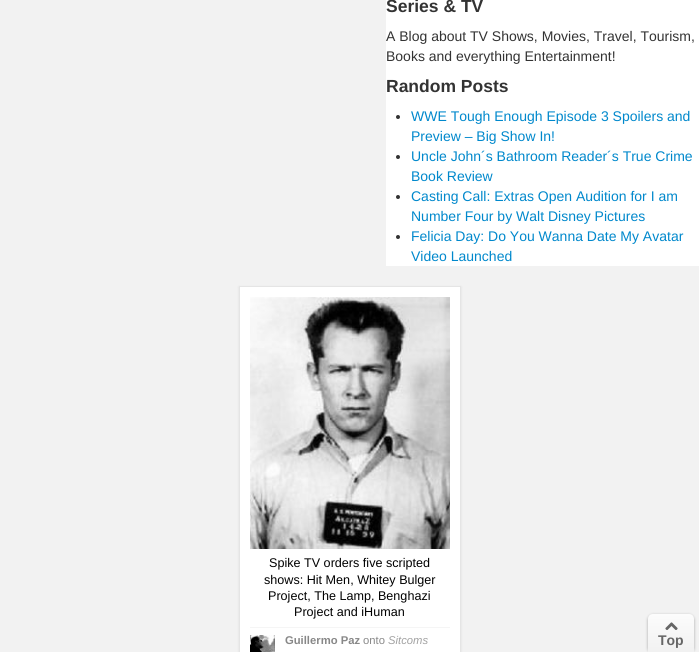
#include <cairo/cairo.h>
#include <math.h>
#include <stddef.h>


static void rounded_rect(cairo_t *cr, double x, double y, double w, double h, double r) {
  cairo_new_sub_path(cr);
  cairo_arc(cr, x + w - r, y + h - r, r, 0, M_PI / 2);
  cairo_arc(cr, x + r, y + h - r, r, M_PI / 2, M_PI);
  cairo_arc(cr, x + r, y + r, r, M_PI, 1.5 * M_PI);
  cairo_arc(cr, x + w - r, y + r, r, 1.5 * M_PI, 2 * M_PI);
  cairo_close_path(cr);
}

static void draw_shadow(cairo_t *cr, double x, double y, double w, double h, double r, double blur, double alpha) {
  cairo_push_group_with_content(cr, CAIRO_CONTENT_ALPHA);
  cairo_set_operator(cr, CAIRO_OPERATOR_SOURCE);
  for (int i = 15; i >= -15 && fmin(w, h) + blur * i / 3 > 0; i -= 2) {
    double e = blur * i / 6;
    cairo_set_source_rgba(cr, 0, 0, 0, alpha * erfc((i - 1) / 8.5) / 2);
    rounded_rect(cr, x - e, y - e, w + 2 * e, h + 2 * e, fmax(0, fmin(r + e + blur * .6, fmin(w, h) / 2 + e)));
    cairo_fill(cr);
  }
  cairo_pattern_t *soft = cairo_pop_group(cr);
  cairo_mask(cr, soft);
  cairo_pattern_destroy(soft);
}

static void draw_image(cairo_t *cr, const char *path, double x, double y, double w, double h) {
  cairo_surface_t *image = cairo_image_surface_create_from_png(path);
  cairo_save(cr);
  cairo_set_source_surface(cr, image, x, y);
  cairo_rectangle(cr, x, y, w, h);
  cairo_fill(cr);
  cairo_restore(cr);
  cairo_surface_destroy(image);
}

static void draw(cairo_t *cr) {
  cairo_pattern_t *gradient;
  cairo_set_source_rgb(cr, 242 / 255.0, 242 / 255.0, 242 / 255.0);
  cairo_paint(cr);
  cairo_set_source_rgb(cr, 1, 1, 1);
  cairo_rectangle(cr, 386, 0, 313, 266);
  cairo_fill(cr);
  cairo_set_source_rgb(cr, 51 / 255.0, 51 / 255.0, 51 / 255.0);
  cairo_arc(cr, 398, 117, 2, 0, 2 * M_PI);
  cairo_fill(cr);
  cairo_arc(cr, 398, 157, 2, 0, 2 * M_PI);
  cairo_fill(cr);
  cairo_arc(cr, 398, 197, 2, 0, 2 * M_PI);
  cairo_fill(cr);
  cairo_arc(cr, 398, 237, 2, 0, 2 * M_PI);
  cairo_fill(cr);
  cairo_set_source_rgb(cr, 0, 0, 0);
  draw_shadow(cr, 239, 287, 222, 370, 0, 1.5, 0.08);
  cairo_set_source_rgb(cr, 1, 1, 1);
  cairo_rectangle(cr, 239.5, 286.5, 221, 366);
  cairo_fill_preserve(cr);
  cairo_set_source_rgb(cr, 229 / 255.0, 229 / 255.0, 229 / 255.0);
  cairo_set_line_width(cr, 1);
  cairo_stroke(cr);
  draw_image(cr, "images/1.png", 250, 297, 200, 252);
  cairo_set_source_rgb(cr, 245 / 255.0, 245 / 255.0, 245 / 255.0);
  cairo_rectangle(cr, 250, 627, 200, 1);
  cairo_fill(cr);
  draw_image(cr, "images/2.png", 250, 635, 25, 17);
  cairo_set_source_rgb(cr, 0, 0, 0);
  draw_shadow(cr, 648, 615, 46, 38, 5, 1.5, 0.3);
  gradient = cairo_pattern_create_linear(671, 614, 671, 652);
  cairo_pattern_add_color_stop_rgba(gradient, 0, 252 / 255.0, 252 / 255.0, 252 / 255.0, 1);
  cairo_pattern_add_color_stop_rgba(gradient, 1, 241 / 255.0, 241 / 255.0, 241 / 255.0, 1);
  cairo_set_source(cr, gradient);
  cairo_pattern_destroy(gradient);
  cairo_new_path(cr);
  cairo_move_to(cr, 653, 614);
  cairo_line_to(cr, 689, 614);
  cairo_curve_to(cr, 692, 614, 694, 616, 694, 619);
  cairo_line_to(cr, 694, 652);
  cairo_line_to(cr, 648, 652);
  cairo_line_to(cr, 648, 619);
  cairo_curve_to(cr, 648, 616, 650, 614, 653, 614);
  cairo_close_path(cr);
  cairo_fill(cr);
  draw_image(cr, "images/3.png", 665, 622, 13, 8);
  cairo_select_font_face(cr, "Liberation Sans", CAIRO_FONT_SLANT_NORMAL, CAIRO_FONT_WEIGHT_BOLD);
  cairo_set_font_size(cr, 17.5);
  cairo_set_source_rgb(cr, 51 / 255.0, 51 / 255.0, 51 / 255.0);
  cairo_move_to(cr, 386, 12);
  cairo_show_text(cr, "Series & TV");
  cairo_select_font_face(cr, "Liberation Sans", CAIRO_FONT_SLANT_NORMAL, CAIRO_FONT_WEIGHT_NORMAL);
  cairo_set_font_size(cr, 14);
  cairo_move_to(cr, 386, 41);
  cairo_show_text(cr, "A Blog about TV Shows, Movies, Travel, Tourism,");
  cairo_move_to(cr, 386, 61);
  cairo_show_text(cr, "Books and everything Entertainment!");
  cairo_select_font_face(cr, "Liberation Sans", CAIRO_FONT_SLANT_NORMAL, CAIRO_FONT_WEIGHT_BOLD);
  cairo_set_font_size(cr, 17.5);
  cairo_move_to(cr, 386, 92);
  cairo_show_text(cr, "Random Posts");
  cairo_select_font_face(cr, "Liberation Sans", CAIRO_FONT_SLANT_NORMAL, CAIRO_FONT_WEIGHT_NORMAL);
  cairo_set_font_size(cr, 14);
  cairo_set_source_rgb(cr, 0, 136 / 255.0, 204 / 255.0);
  cairo_move_to(cr, 411, 121);
  cairo_show_text(cr, "WWE Tough Enough Episode 3 Spoilers and");
  cairo_move_to(cr, 411, 141);
  cairo_show_text(cr, "Preview – Big Show In!");
  cairo_move_to(cr, 411, 161);
  cairo_show_text(cr, "Uncle John´s Bathroom Reader´s True Crime");
  cairo_move_to(cr, 411, 181);
  cairo_show_text(cr, "Book Review");
  cairo_move_to(cr, 411, 201);
  cairo_show_text(cr, "Casting Call: Extras Open Audition for I am");
  cairo_move_to(cr, 411, 221);
  cairo_show_text(cr, "Number Four by Walt Disney Pictures");
  cairo_move_to(cr, 411, 241);
  cairo_show_text(cr, "Felicia Day: Do You Wanna Date My Avatar");
  cairo_move_to(cr, 411, 261);
  cairo_show_text(cr, "Video Launched");
  cairo_set_font_size(cr, 12.6);
  cairo_set_source_rgb(cr, 0, 0, 0);
  cairo_move_to(cr, 269, 567);
  cairo_show_text(cr, "Spike TV orders five scripted");
  cairo_move_to(cr, 264, 584);
  cairo_show_text(cr, "shows: Hit Men, Whitey Bulger");
  cairo_move_to(cr, 268, 600);
  cairo_show_text(cr, "Project, The Lamp, Benghazi");
  cairo_move_to(cr, 294, 616);
  cairo_show_text(cr, "Project and iHuman");
  cairo_select_font_face(cr, "Liberation Sans", CAIRO_FONT_SLANT_NORMAL, CAIRO_FONT_WEIGHT_BOLD);
  cairo_set_font_size(cr, 11.25);
  cairo_set_source_rgb(cr, 136 / 255.0, 136 / 255.0, 136 / 255.0);
  cairo_move_to(cr, 285, 644);
  cairo_show_text(cr, "Guillermo Paz");
  cairo_select_font_face(cr, "Liberation Sans", CAIRO_FONT_SLANT_NORMAL, CAIRO_FONT_WEIGHT_NORMAL);
  cairo_move_to(cr, 363, 644);
  cairo_show_text(cr, "onto");
  cairo_select_font_face(cr, "Liberation Sans", CAIRO_FONT_SLANT_ITALIC, CAIRO_FONT_WEIGHT_NORMAL);
  cairo_set_source_rgb(cr, 161 / 255.0, 161 / 255.0, 161 / 255.0);
  cairo_move_to(cr, 388, 644);
  cairo_show_text(cr, "Sitcoms");
  cairo_select_font_face(cr, "Liberation Sans", CAIRO_FONT_SLANT_NORMAL, CAIRO_FONT_WEIGHT_BOLD);
  cairo_set_font_size(cr, 14);
  cairo_set_source_rgb(cr, 102 / 255.0, 102 / 255.0, 102 / 255.0);
  cairo_move_to(cr, 658, 645);
  cairo_show_text(cr, "Top");
}

int main(void) {
  cairo_surface_t *surface = cairo_image_surface_create(CAIRO_FORMAT_RGB24, 699, 652);
  cairo_t *cr = cairo_create(surface);
  cairo_font_options_t *options = cairo_font_options_create();
  cairo_font_options_set_hint_metrics(options, CAIRO_HINT_METRICS_OFF);
  cairo_font_options_set_hint_style(options, CAIRO_HINT_STYLE_NONE);
  cairo_set_font_options(cr, options);
  cairo_set_miter_limit(cr, 4);
  draw(cr);
  cairo_surface_write_to_png(surface, "out.png");
  cairo_font_options_destroy(options);
  cairo_destroy(cr);
  cairo_surface_destroy(surface);
  return 0;
}
